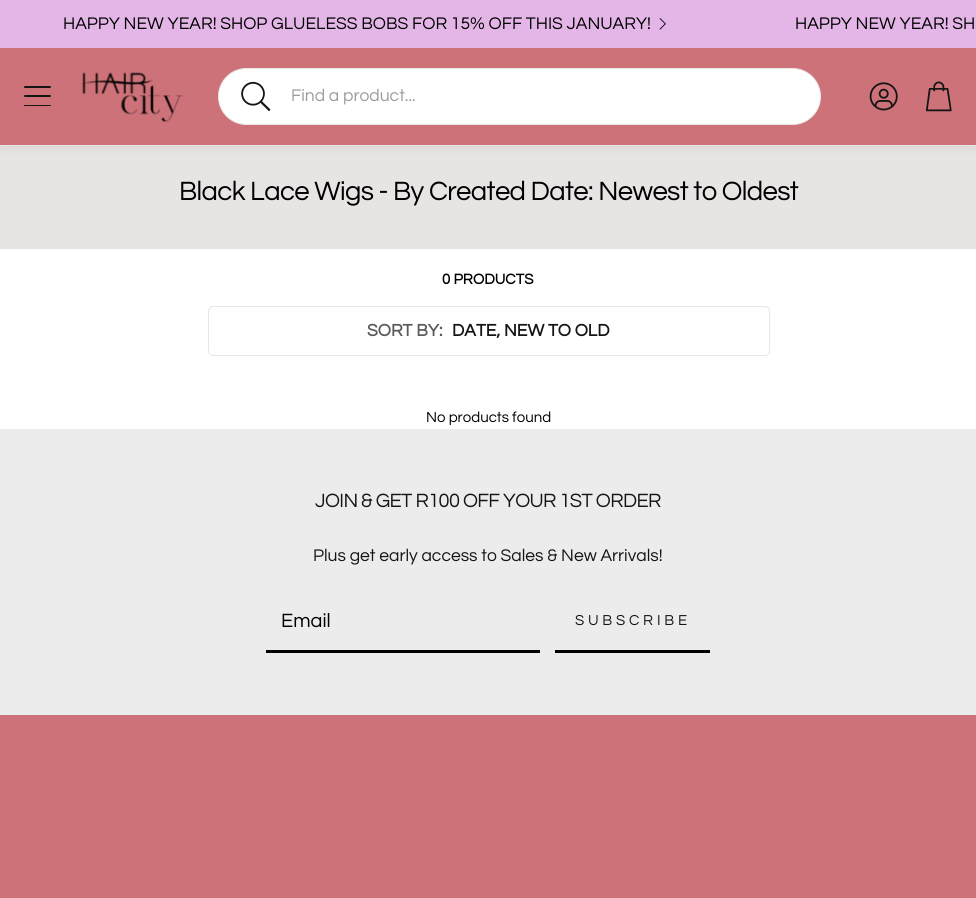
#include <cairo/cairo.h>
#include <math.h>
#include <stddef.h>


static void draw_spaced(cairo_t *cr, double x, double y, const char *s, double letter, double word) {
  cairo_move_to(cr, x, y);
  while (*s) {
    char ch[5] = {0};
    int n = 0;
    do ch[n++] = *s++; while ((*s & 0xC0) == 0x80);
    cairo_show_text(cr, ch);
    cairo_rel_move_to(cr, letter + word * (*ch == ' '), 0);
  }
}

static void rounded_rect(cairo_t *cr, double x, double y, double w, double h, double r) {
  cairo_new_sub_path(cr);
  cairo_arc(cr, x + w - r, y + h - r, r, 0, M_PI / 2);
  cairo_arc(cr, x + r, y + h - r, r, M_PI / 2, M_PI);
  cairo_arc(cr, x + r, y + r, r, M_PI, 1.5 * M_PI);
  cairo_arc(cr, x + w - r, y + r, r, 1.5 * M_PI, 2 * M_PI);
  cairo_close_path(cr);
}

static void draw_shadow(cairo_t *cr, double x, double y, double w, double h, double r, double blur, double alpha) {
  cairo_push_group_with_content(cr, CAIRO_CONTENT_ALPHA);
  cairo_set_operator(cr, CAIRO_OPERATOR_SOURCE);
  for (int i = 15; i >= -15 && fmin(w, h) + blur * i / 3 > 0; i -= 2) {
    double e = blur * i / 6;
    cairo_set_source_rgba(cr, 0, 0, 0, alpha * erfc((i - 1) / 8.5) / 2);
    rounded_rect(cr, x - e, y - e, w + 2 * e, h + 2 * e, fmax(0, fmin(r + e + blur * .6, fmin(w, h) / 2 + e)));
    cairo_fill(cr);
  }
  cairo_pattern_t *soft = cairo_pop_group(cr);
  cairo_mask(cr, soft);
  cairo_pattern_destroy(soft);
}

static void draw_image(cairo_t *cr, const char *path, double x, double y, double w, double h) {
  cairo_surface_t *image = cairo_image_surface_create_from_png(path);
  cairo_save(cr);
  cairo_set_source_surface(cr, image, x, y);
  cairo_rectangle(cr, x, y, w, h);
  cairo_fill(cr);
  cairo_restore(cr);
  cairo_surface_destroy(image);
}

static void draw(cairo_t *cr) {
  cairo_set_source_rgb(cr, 1, 1, 1);
  cairo_paint(cr);
  cairo_set_source_rgb(cr, 227 / 255.0, 182 / 255.0, 231 / 255.0);
  cairo_rectangle(cr, 0, 0, 976, 48);
  cairo_fill(cr);
  draw_image(cr, "images/1.png", 659, 18, 7, 12);
  cairo_set_source_rgb(cr, 232 / 255.0, 228 / 255.0, 228 / 255.0);
  cairo_rectangle(cr, 0, 146, 976, 103);
  cairo_fill(cr);
  cairo_set_source_rgb(cr, 0, 0, 0);
  draw_shadow(cr, 0, 51, 976, 99, 0, 4, 0.05);
  cairo_set_source_rgb(cr, 206 / 255.0, 114 / 255.0, 121 / 255.0);
  cairo_rectangle(cr, 0, 48, 976, 97);
  cairo_fill(cr);
  cairo_set_source_rgb(cr, 231 / 255.0, 231 / 255.0, 231 / 255.0);
  cairo_rectangle(cr, 0, 145, 976, 1);
  cairo_fill(cr);
  cairo_set_source_rgb(cr, 21 / 255.0, 21 / 255.0, 21 / 255.0);
  rounded_rect(cr, 24, 86, 27, 2, 1);
  cairo_fill(cr);
  rounded_rect(cr, 24, 95, 27, 2, 1);
  cairo_fill(cr);
  rounded_rect(cr, 24, 105, 27, 1, 0.5);
  cairo_fill(cr);
  draw_image(cr, "images/2.png", 82, 72, 101, 51);
  cairo_set_source_rgb(cr, 1, 1, 1);
  rounded_rect(cr, 218.5, 68.5, 602, 56, 28);
  cairo_fill_preserve(cr);
  cairo_set_source_rgb(cr, 232 / 255.0, 232 / 255.0, 225 / 255.0);
  cairo_set_line_width(cr, 1);
  cairo_stroke(cr);
  draw_image(cr, "images/3.png", 241, 81, 30, 30);
  draw_image(cr, "images/4.png", 869, 82, 29, 29);
  draw_image(cr, "images/5.png", 925, 81, 27, 31);
  rounded_rect(cr, 208.5, 306.5, 561, 49, 4.5);
  cairo_set_source_rgb(cr, 231 / 255.0, 231 / 255.0, 231 / 255.0);
  cairo_stroke(cr);
  cairo_set_source_rgb(cr, 236 / 255.0, 236 / 255.0, 236 / 255.0);
  cairo_rectangle(cr, 0, 429, 976, 286);
  cairo_fill(cr);
  cairo_set_source_rgb(cr, 0, 0, 0);
  cairo_rectangle(cr, 266, 650, 274, 3);
  cairo_fill(cr);
  cairo_rectangle(cr, 555, 650, 155, 3);
  cairo_fill(cr);
  cairo_set_source_rgb(cr, 206 / 255.0, 114 / 255.0, 121 / 255.0);
  cairo_rectangle(cr, 0, 715, 976, 183);
  cairo_fill(cr);
  cairo_select_font_face(cr, "Questrial", CAIRO_FONT_SLANT_NORMAL, CAIRO_FONT_WEIGHT_NORMAL);
  cairo_set_font_size(cr, 17.5);
  cairo_set_source_rgb(cr, 0, 0, 0);
  cairo_move_to(cr, 63, 29);
  cairo_show_text(cr, "HAPPY NEW YEAR! SHOP GLUELESS BOBS FOR 15% OFF THIS JANUARY!");
  cairo_move_to(cr, 795, 29);
  cairo_show_text(cr, "HAPPY NEW YEAR! SH");
  cairo_set_source_rgb(cr, 156 / 255.0, 156 / 255.0, 156 / 255.0);
  cairo_move_to(cr, 291, 101);
  cairo_show_text(cr, "Find a product...");
  cairo_set_font_size(cr, 27.5);
  cairo_set_source_rgb(cr, 0, 0, 0);
  draw_spaced(cr, 179, 200, "Black Lace Wigs - By Created Date: Newest to Oldest", -0.62, 0);
  cairo_select_font_face(cr, "Questrial", CAIRO_FONT_SLANT_NORMAL, CAIRO_FONT_WEIGHT_BOLD);
  cairo_set_font_size(cr, 15);
  cairo_move_to(cr, 442, 284);
  cairo_show_text(cr, "0 PRODUCTS");
  cairo_set_font_size(cr, 17.5);
  cairo_set_source_rgb(cr, 91 / 255.0, 91 / 255.0, 91 / 255.0);
  cairo_move_to(cr, 367, 336);
  cairo_show_text(cr, "SORT BY:");
  cairo_set_source_rgb(cr, 21 / 255.0, 21 / 255.0, 21 / 255.0);
  cairo_move_to(cr, 452, 336);
  cairo_show_text(cr, "DATE, NEW TO OLD");
  cairo_select_font_face(cr, "Questrial", CAIRO_FONT_SLANT_NORMAL, CAIRO_FONT_WEIGHT_NORMAL);
  cairo_set_font_size(cr, 15);
  cairo_set_source_rgb(cr, 0, 0, 0);
  cairo_move_to(cr, 426, 422);
  cairo_show_text(cr, "No products found");
  cairo_set_font_size(cr, 20);
  cairo_set_source_rgb(cr, 21 / 255.0, 21 / 255.0, 21 / 255.0);
  draw_spaced(cr, 315, 507, "JOIN & GET R100 OFF YOUR 1ST ORDER", -0.62, 0);
  cairo_set_font_size(cr, 17.5);
  cairo_move_to(cr, 313, 561);
  cairo_show_text(cr, "Plus get early access to Sales & New Arrivals!");
  cairo_set_font_size(cr, 20);
  cairo_set_source_rgb(cr, 0, 0, 0);
  cairo_move_to(cr, 281, 627);
  cairo_show_text(cr, "Email");
  cairo_set_font_size(cr, 15);
  cairo_set_source_rgb(cr, 21 / 255.0, 21 / 255.0, 21 / 255.0);
  draw_spaced(cr, 575, 625, "SUBSCRIBE", 3.75, 0);
}

int main(void) {
  cairo_surface_t *surface = cairo_image_surface_create(CAIRO_FORMAT_RGB24, 976, 898);
  cairo_t *cr = cairo_create(surface);
  cairo_font_options_t *options = cairo_font_options_create();
  cairo_font_options_set_hint_metrics(options, CAIRO_HINT_METRICS_OFF);
  cairo_font_options_set_hint_style(options, CAIRO_HINT_STYLE_NONE);
  cairo_set_font_options(cr, options);
  cairo_set_miter_limit(cr, 4);
  draw(cr);
  cairo_surface_write_to_png(surface, "out.png");
  cairo_font_options_destroy(options);
  cairo_destroy(cr);
  cairo_surface_destroy(surface);
  return 0;
}
